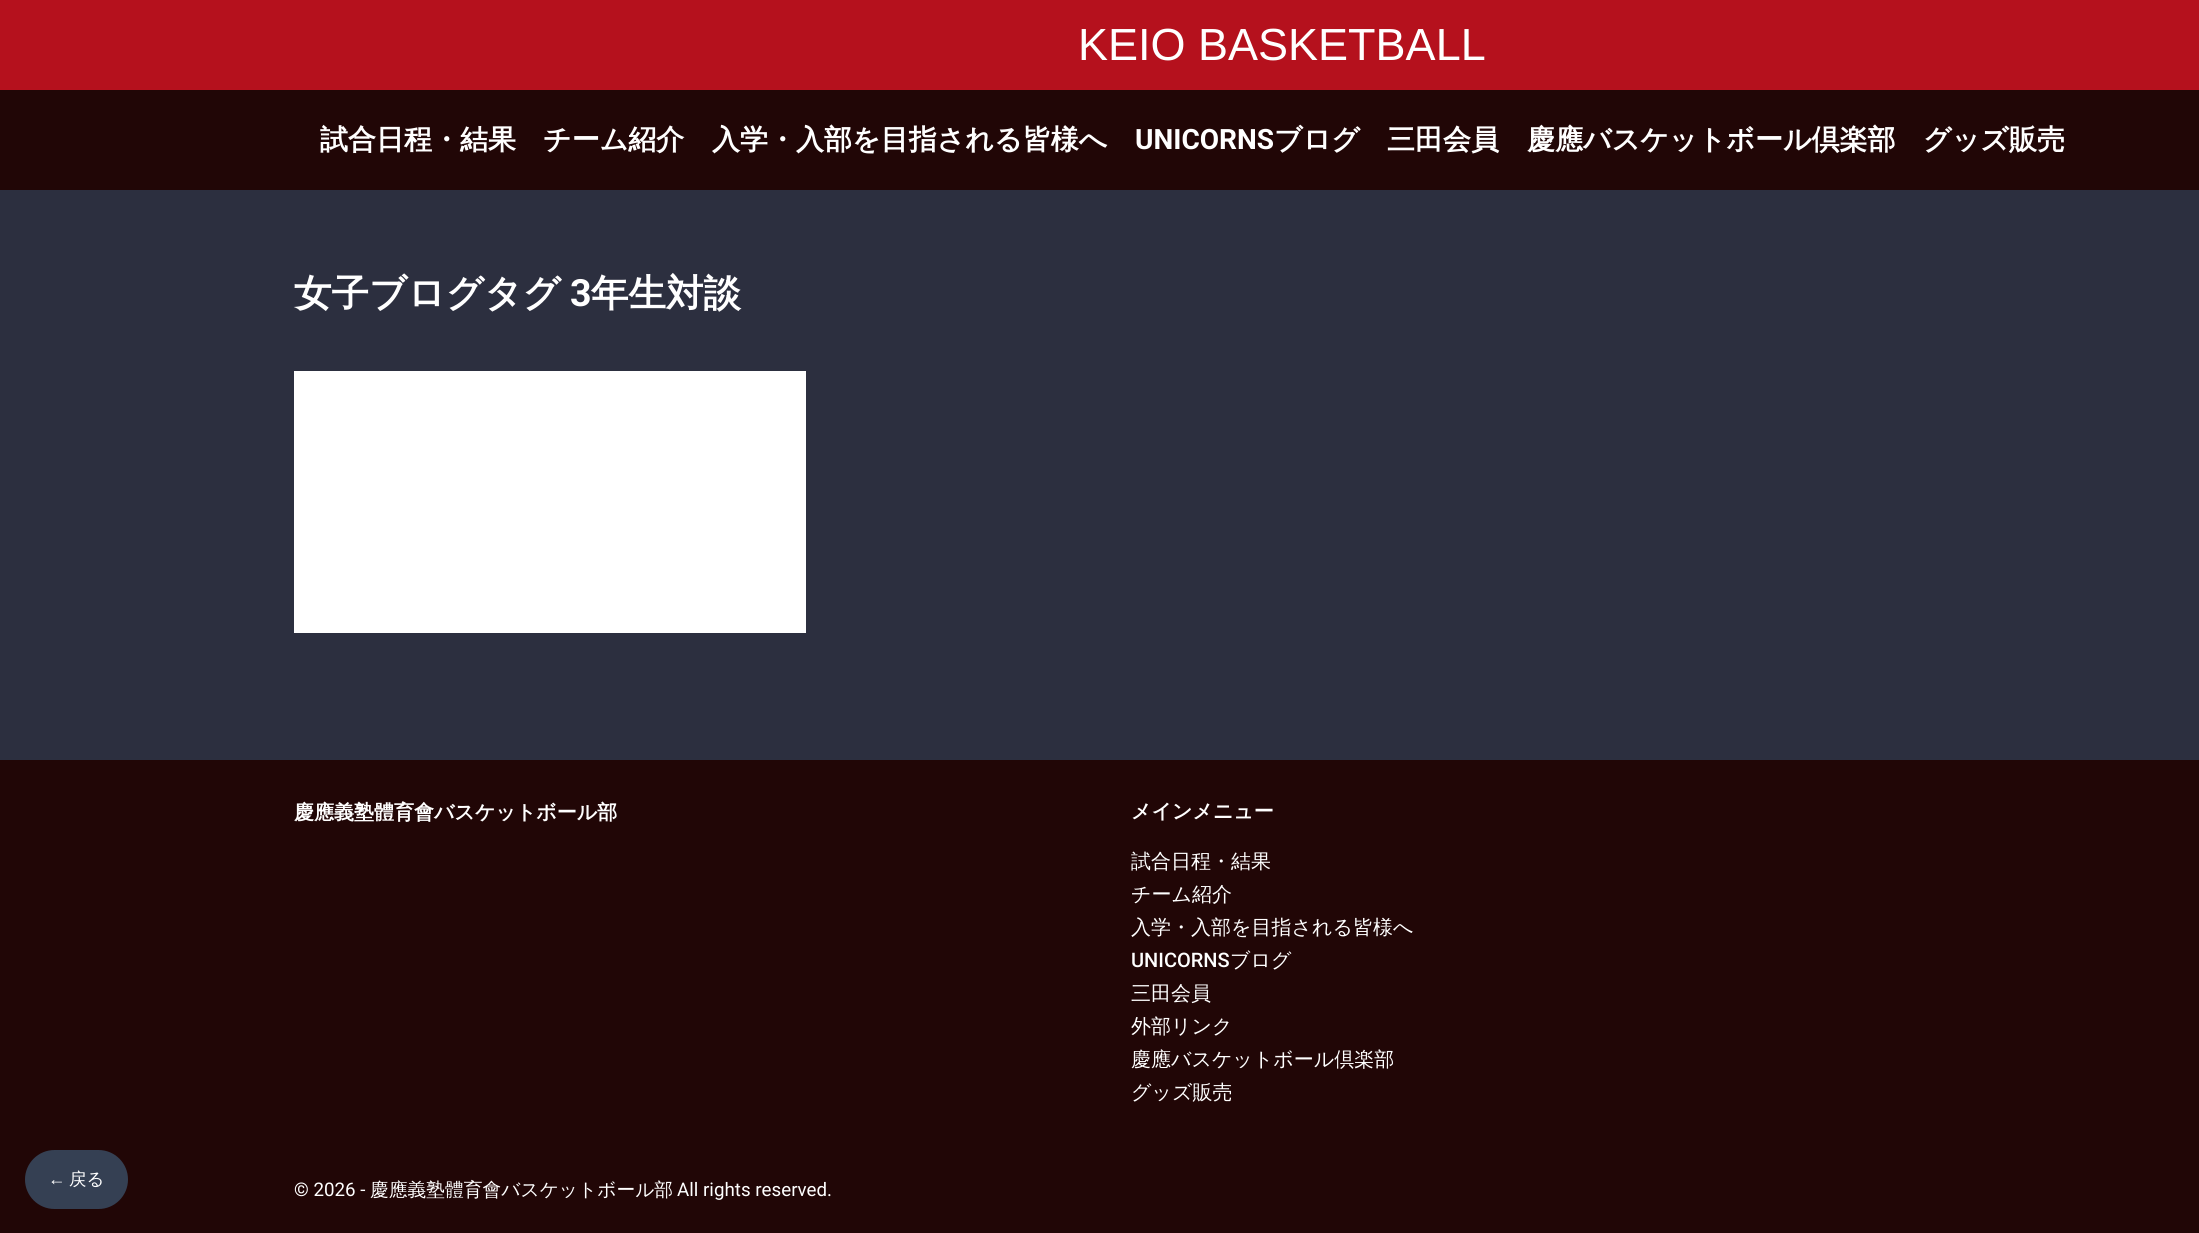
#include <cairo/cairo.h>
#include <math.h>
#include <stddef.h>


static void rounded_rect(cairo_t *cr, double x, double y, double w, double h, double r) {
  cairo_new_sub_path(cr);
  cairo_arc(cr, x + w - r, y + h - r, r, 0, M_PI / 2);
  cairo_arc(cr, x + r, y + h - r, r, M_PI / 2, M_PI);
  cairo_arc(cr, x + r, y + r, r, M_PI, 1.5 * M_PI);
  cairo_arc(cr, x + w - r, y + r, r, 1.5 * M_PI, 2 * M_PI);
  cairo_close_path(cr);
}

static void draw(cairo_t *cr) {
  cairo_set_source_rgb(cr, 44 / 255.0, 47 / 255.0, 63 / 255.0);
  cairo_paint(cr);
  cairo_set_source_rgb(cr, 33 / 255.0, 6 / 255.0, 6 / 255.0);
  cairo_rectangle(cr, 0, 760, 2199, 473);
  cairo_fill(cr);
  cairo_set_source_rgb(cr, 53 / 255.0, 64 / 255.0, 83 / 255.0);
  rounded_rect(cr, 25, 1150, 103, 59, 29.5);
  cairo_fill(cr);
  cairo_set_source_rgb(cr, 181 / 255.0, 17 / 255.0, 29 / 255.0);
  cairo_rectangle(cr, 0, 0, 2199, 90);
  cairo_fill(cr);
  cairo_set_source_rgb(cr, 33 / 255.0, 6 / 255.0, 6 / 255.0);
  cairo_rectangle(cr, 0, 90, 2199, 100);
  cairo_fill(cr);
  cairo_set_source_rgb(cr, 1, 1, 1);
  cairo_rectangle(cr, 294, 371, 512, 262);
  cairo_fill(cr);
  cairo_select_font_face(cr, "Liberation Sans", CAIRO_FONT_SLANT_NORMAL, CAIRO_FONT_WEIGHT_NORMAL);
  cairo_set_font_size(cr, 17.5);
  cairo_move_to(cr, 48, 1185);
  cairo_show_text(cr, "←");
  cairo_select_font_face(cr, "WenQuanYi Zen Hei Medium", CAIRO_FONT_SLANT_NORMAL, CAIRO_FONT_WEIGHT_NORMAL);
  cairo_move_to(cr, 69, 1185);
  cairo_show_text(cr, "戻る");
  cairo_select_font_face(cr, "Liberation Sans", CAIRO_FONT_SLANT_NORMAL, CAIRO_FONT_WEIGHT_NORMAL);
  cairo_set_font_size(cr, 45);
  cairo_move_to(cr, 1078, 60);
  cairo_show_text(cr, "KEIO BASKETBALL");
  cairo_select_font_face(cr, "WenQuanYi Zen Hei", CAIRO_FONT_SLANT_NORMAL, CAIRO_FONT_WEIGHT_BOLD);
  cairo_set_font_size(cr, 28);
  cairo_move_to(cr, 320, 149);
  cairo_show_text(cr, "試合日程・結果");
  cairo_move_to(cr, 543, 149);
  cairo_show_text(cr, "チーム紹介");
  cairo_move_to(cr, 712, 149);
  cairo_show_text(cr, "入学・入部を目指される皆様へ");
  cairo_select_font_face(cr, "Roboto", CAIRO_FONT_SLANT_NORMAL, CAIRO_FONT_WEIGHT_BOLD);
  cairo_move_to(cr, 1135, 149);
  cairo_show_text(cr, "UNICORNS");
  cairo_select_font_face(cr, "WenQuanYi Zen Hei", CAIRO_FONT_SLANT_NORMAL, CAIRO_FONT_WEIGHT_BOLD);
  cairo_move_to(cr, 1274, 149);
  cairo_show_text(cr, "ブログ");
  cairo_move_to(cr, 1387, 149);
  cairo_show_text(cr, "三田会員");
  cairo_move_to(cr, 1527, 149);
  cairo_show_text(cr, "慶應バスケットボール倶楽部");
  cairo_move_to(cr, 1923, 149);
  cairo_show_text(cr, "グッズ販売");
  cairo_set_font_size(cr, 37.5);
  cairo_move_to(cr, 294, 306);
  cairo_show_text(cr, "女子ブログタグ");
  cairo_select_font_face(cr, "Roboto", CAIRO_FONT_SLANT_NORMAL, CAIRO_FONT_WEIGHT_BOLD);
  cairo_move_to(cr, 570, 306);
  cairo_show_text(cr, "3");
  cairo_select_font_face(cr, "WenQuanYi Zen Hei", CAIRO_FONT_SLANT_NORMAL, CAIRO_FONT_WEIGHT_BOLD);
  cairo_move_to(cr, 591, 306);
  cairo_show_text(cr, "年生対談");
  cairo_set_font_size(cr, 20);
  cairo_move_to(cr, 294, 819);
  cairo_show_text(cr, "慶應義塾體育會バスケットボール部");
  cairo_move_to(cr, 1131, 818);
  cairo_show_text(cr, "メインメニュー");
  cairo_select_font_face(cr, "WenQuanYi Zen Hei Medium", CAIRO_FONT_SLANT_NORMAL, CAIRO_FONT_WEIGHT_NORMAL);
  cairo_move_to(cr, 1131, 868);
  cairo_show_text(cr, "試合日程・結果");
  cairo_move_to(cr, 1131, 901);
  cairo_show_text(cr, "チーム紹介");
  cairo_move_to(cr, 1131, 934);
  cairo_show_text(cr, "入学・入部を目指される皆様へ");
  cairo_select_font_face(cr, "Roboto Medium", CAIRO_FONT_SLANT_NORMAL, CAIRO_FONT_WEIGHT_NORMAL);
  cairo_move_to(cr, 1131, 967);
  cairo_show_text(cr, "UNICORNS");
  cairo_select_font_face(cr, "WenQuanYi Zen Hei Medium", CAIRO_FONT_SLANT_NORMAL, CAIRO_FONT_WEIGHT_NORMAL);
  cairo_move_to(cr, 1230, 967);
  cairo_show_text(cr, "ブログ");
  cairo_move_to(cr, 1131, 1000);
  cairo_show_text(cr, "三田会員");
  cairo_move_to(cr, 1131, 1033);
  cairo_show_text(cr, "外部リンク");
  cairo_move_to(cr, 1131, 1066);
  cairo_show_text(cr, "慶應バスケットボール倶楽部");
  cairo_move_to(cr, 1131, 1099);
  cairo_show_text(cr, "グッズ販売");
  cairo_select_font_face(cr, "Roboto", CAIRO_FONT_SLANT_NORMAL, CAIRO_FONT_WEIGHT_NORMAL);
  cairo_set_font_size(cr, 18.75);
  cairo_move_to(cr, 294, 1196);
  cairo_show_text(cr, "© 2026 -");
  cairo_select_font_face(cr, "WenQuanYi Zen Hei Medium", CAIRO_FONT_SLANT_NORMAL, CAIRO_FONT_WEIGHT_NORMAL);
  cairo_move_to(cr, 370, 1196);
  cairo_show_text(cr, "慶應義塾體育會バスケットボール部");
  cairo_select_font_face(cr, "Roboto", CAIRO_FONT_SLANT_NORMAL, CAIRO_FONT_WEIGHT_NORMAL);
  cairo_move_to(cr, 677, 1196);
  cairo_show_text(cr, "All rights reserved.");
}

int main(void) {
  cairo_surface_t *surface = cairo_image_surface_create(CAIRO_FORMAT_RGB24, 2199, 1233);
  cairo_t *cr = cairo_create(surface);
  cairo_font_options_t *options = cairo_font_options_create();
  cairo_font_options_set_hint_metrics(options, CAIRO_HINT_METRICS_OFF);
  cairo_font_options_set_hint_style(options, CAIRO_HINT_STYLE_NONE);
  cairo_set_font_options(cr, options);
  cairo_set_miter_limit(cr, 4);
  draw(cr);
  cairo_surface_write_to_png(surface, "out.png");
  cairo_font_options_destroy(options);
  cairo_destroy(cr);
  cairo_surface_destroy(surface);
  return 0;
}
